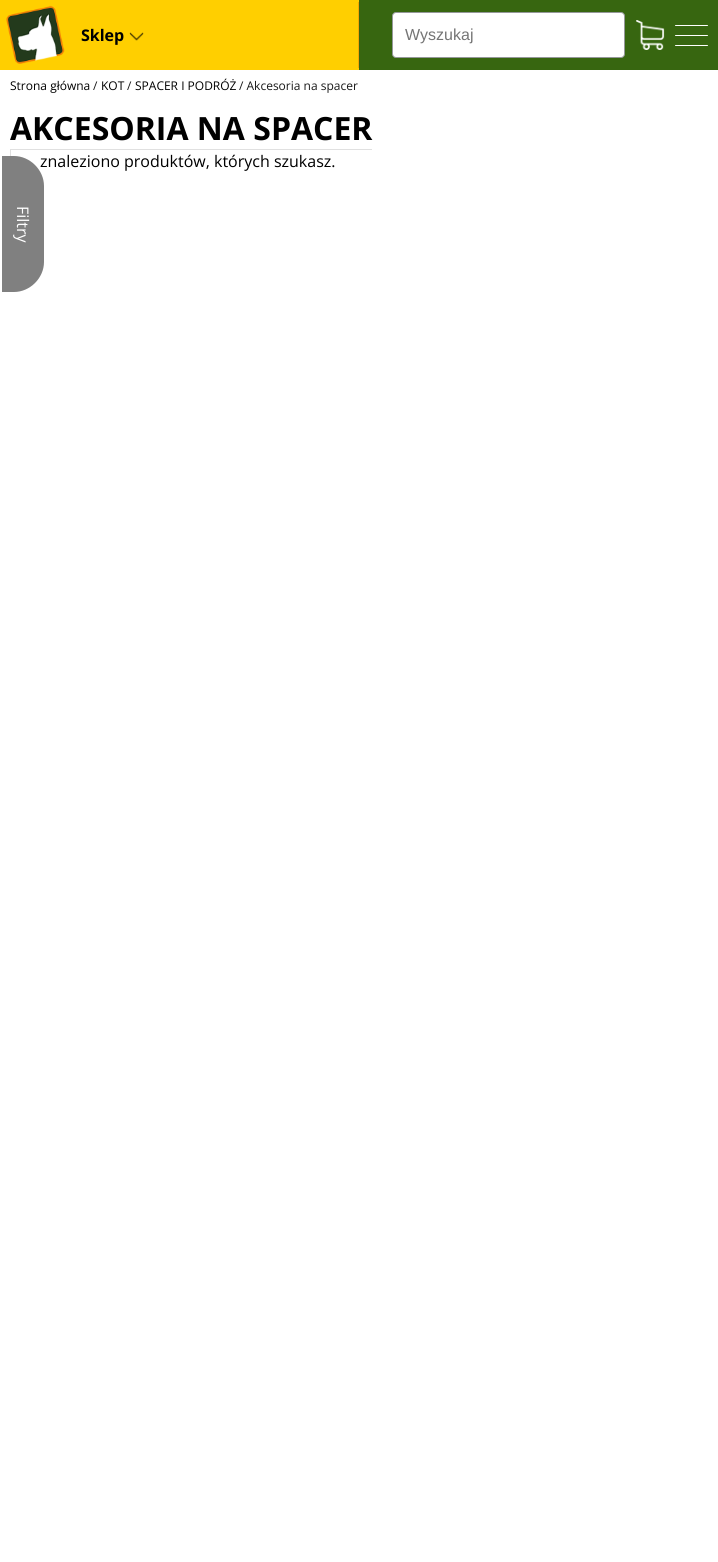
#include <cairo/cairo.h>
#include <math.h>
#include <stddef.h>


static void rounded_rect(cairo_t *cr, double x, double y, double w, double h, double r) {
  cairo_new_sub_path(cr);
  cairo_arc(cr, x + w - r, y + h - r, r, 0, M_PI / 2);
  cairo_arc(cr, x + r, y + h - r, r, M_PI / 2, M_PI);
  cairo_arc(cr, x + r, y + r, r, M_PI, 1.5 * M_PI);
  cairo_arc(cr, x + w - r, y + r, r, 1.5 * M_PI, 2 * M_PI);
  cairo_close_path(cr);
}

static void draw_image(cairo_t *cr, const char *path, double x, double y, double w, double h) {
  cairo_surface_t *image = cairo_image_surface_create_from_png(path);
  cairo_save(cr);
  cairo_set_source_surface(cr, image, x, y);
  cairo_rectangle(cr, x, y, w, h);
  cairo_fill(cr);
  cairo_restore(cr);
  cairo_surface_destroy(image);
}

static void draw(cairo_t *cr) {
  cairo_set_source_rgb(cr, 1, 1, 1);
  cairo_paint(cr);
  cairo_set_source_rgb(cr, 1, 207 / 255.0, 0);
  cairo_rectangle(cr, 0, 0, 359, 70);
  cairo_fill(cr);
  draw_image(cr, "images/1.png", 6, 5, 59, 59);
  draw_image(cr, "images/2.png", 129, 32, 15, 9);
  cairo_set_source_rgb(cr, 246 / 255.0, 166 / 255.0, 1 / 255.0);
  cairo_rectangle(cr, 358, 2, 1, 66);
  cairo_fill(cr);
  cairo_set_source_rgb(cr, 55 / 255.0, 102 / 255.0, 16 / 255.0);
  cairo_rectangle(cr, 359, 0, 359, 70);
  cairo_fill(cr);
  cairo_set_source_rgb(cr, 1, 1, 1);
  rounded_rect(cr, 392.5, 12.5, 232, 45, 3.5);
  cairo_fill_preserve(cr);
  cairo_set_source_rgb(cr, 149 / 255.0, 152 / 255.0, 154 / 255.0);
  cairo_set_line_width(cr, 1);
  cairo_stroke(cr);
  draw_image(cr, "images/3.png", 636, 20, 29, 30);
  cairo_set_source_rgb(cr, 1, 1, 1);
  rounded_rect(cr, 675, 25, 33, 1, 0.5);
  cairo_fill(cr);
  rounded_rect(cr, 675, 35, 33, 1, 0.5);
  cairo_fill(cr);
  rounded_rect(cr, 675, 45, 33, 1, 0.5);
  cairo_fill(cr);
  cairo_set_source_rgb(cr, 224 / 255.0, 224 / 255.0, 224 / 255.0);
  cairo_rectangle(cr, 10, 149, 362, 1);
  cairo_fill(cr);
  cairo_rectangle(cr, 10, 149, 1, 7);
  cairo_fill(cr);
  cairo_select_font_face(cr, "Open Sans", CAIRO_FONT_SLANT_NORMAL, CAIRO_FONT_WEIGHT_BOLD);
  cairo_set_font_size(cr, 16);
  cairo_set_source_rgb(cr, 0, 0, 0);
  cairo_move_to(cr, 81, 41);
  cairo_show_text(cr, "Sklep");
  cairo_select_font_face(cr, "Liberation Sans", CAIRO_FONT_SLANT_NORMAL, CAIRO_FONT_WEIGHT_NORMAL);
  cairo_set_source_rgb(cr, 117 / 255.0, 117 / 255.0, 117 / 255.0);
  cairo_move_to(cr, 405, 40);
  cairo_show_text(cr, "Wyszukaj");
  cairo_select_font_face(cr, "Open Sans", CAIRO_FONT_SLANT_NORMAL, CAIRO_FONT_WEIGHT_NORMAL);
  cairo_set_font_size(cr, 12);
  cairo_set_source_rgb(cr, 0, 0, 0);
  cairo_move_to(cr, 10, 90);
  cairo_show_text(cr, "Strona główna");
  cairo_set_source_rgb(cr, 25 / 255.0, 25 / 255.0, 25 / 255.0);
  cairo_move_to(cr, 93, 90);
  cairo_show_text(cr, "/");
  cairo_set_source_rgb(cr, 0, 0, 0);
  cairo_move_to(cr, 101, 90);
  cairo_show_text(cr, "KOT");
  cairo_set_source_rgb(cr, 25 / 255.0, 25 / 255.0, 25 / 255.0);
  cairo_move_to(cr, 127, 90);
  cairo_show_text(cr, "/");
  cairo_set_source_rgb(cr, 0, 0, 0);
  cairo_move_to(cr, 135, 90);
  cairo_show_text(cr, "SPACER I PODRÓŻ");
  cairo_set_source_rgb(cr, 25 / 255.0, 25 / 255.0, 25 / 255.0);
  cairo_move_to(cr, 239, 90);
  cairo_show_text(cr, "/ Akcesoria na spacer");
  cairo_select_font_face(cr, "Open Sans", CAIRO_FONT_SLANT_NORMAL, CAIRO_FONT_WEIGHT_BOLD);
  cairo_set_font_size(cr, 32);
  cairo_set_source_rgb(cr, 0, 0, 0);
  cairo_move_to(cr, 10, 140);
  cairo_show_text(cr, "AKCESORIA NA SPACER");
  cairo_select_font_face(cr, "Open Sans", CAIRO_FONT_SLANT_NORMAL, CAIRO_FONT_WEIGHT_NORMAL);
  cairo_set_font_size(cr, 16);
  cairo_move_to(cr, 40, 167);
  cairo_show_text(cr, "znaleziono produktów, których szukasz.");
  cairo_set_source_rgb(cr, 128 / 255.0, 128 / 255.0, 128 / 255.0);
  cairo_new_path(cr);
  cairo_move_to(cr, 44, 186);
  cairo_line_to(cr, 44, 262);
  cairo_curve_to(cr, 44, 278, 30, 292, 14, 292);
  cairo_line_to(cr, 2, 292);
  cairo_line_to(cr, 2, 156);
  cairo_line_to(cr, 14, 156);
  cairo_curve_to(cr, 30, 156, 44, 170, 44, 186);
  cairo_close_path(cr);
  cairo_fill(cr);
  cairo_set_source_rgb(cr, 1, 1, 1);
  cairo_save(cr);
  cairo_translate(cr, 17, 206);
  cairo_rotate(cr, 90 * M_PI / 180);
  cairo_move_to(cr, 0, 0);
  cairo_show_text(cr, "Filtry");
  cairo_restore(cr);
}

int main(void) {
  cairo_surface_t *surface = cairo_image_surface_create(CAIRO_FORMAT_RGB24, 718, 1562);
  cairo_t *cr = cairo_create(surface);
  cairo_font_options_t *options = cairo_font_options_create();
  cairo_font_options_set_hint_metrics(options, CAIRO_HINT_METRICS_OFF);
  cairo_font_options_set_hint_style(options, CAIRO_HINT_STYLE_NONE);
  cairo_set_font_options(cr, options);
  cairo_set_miter_limit(cr, 4);
  draw(cr);
  cairo_surface_write_to_png(surface, "out.png");
  cairo_font_options_destroy(options);
  cairo_destroy(cr);
  cairo_surface_destroy(surface);
  return 0;
}
